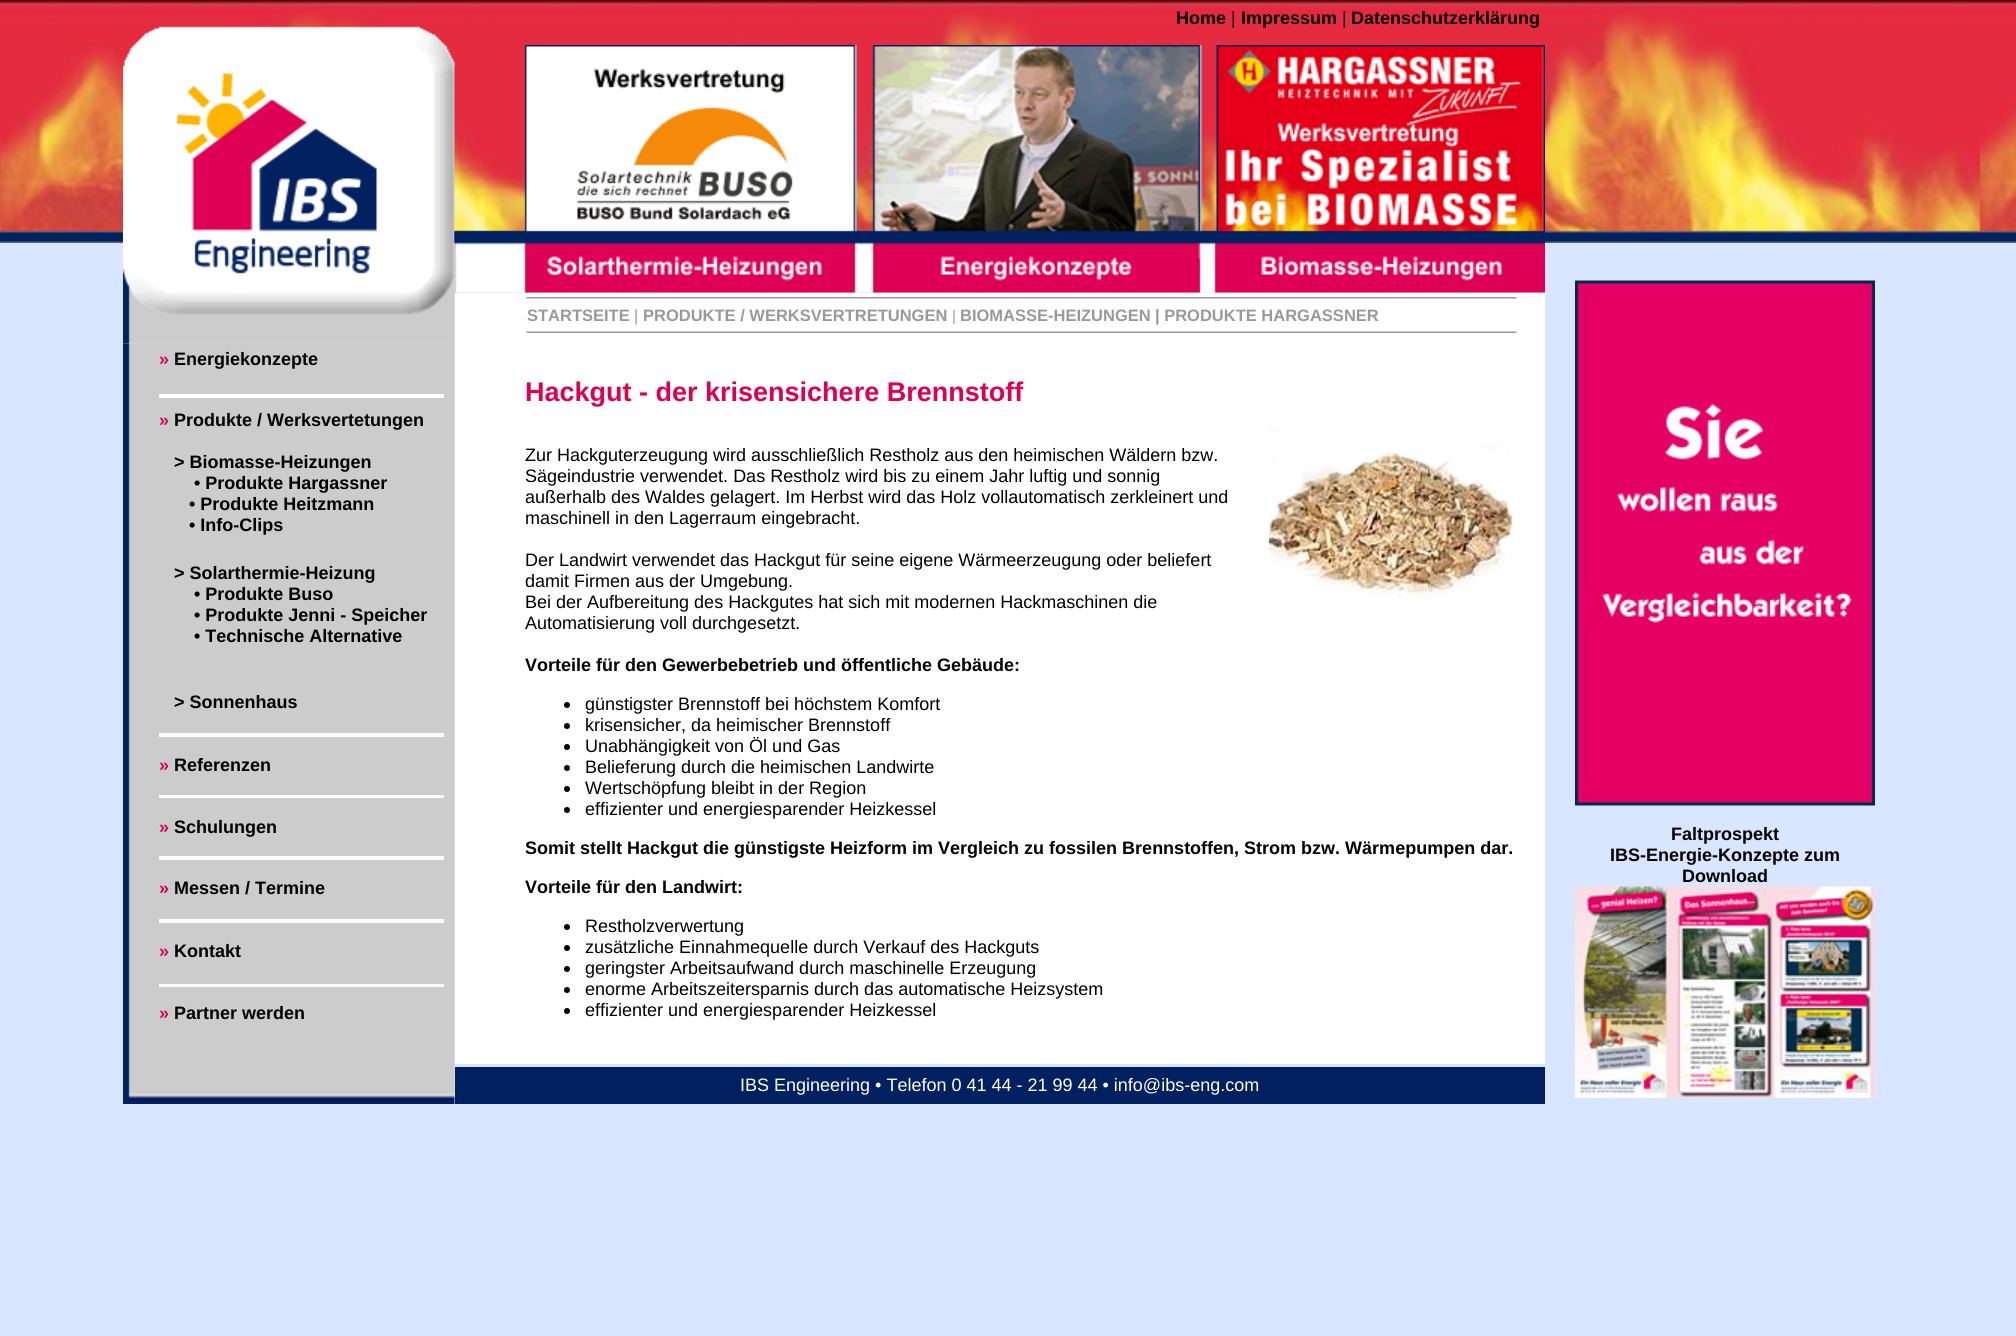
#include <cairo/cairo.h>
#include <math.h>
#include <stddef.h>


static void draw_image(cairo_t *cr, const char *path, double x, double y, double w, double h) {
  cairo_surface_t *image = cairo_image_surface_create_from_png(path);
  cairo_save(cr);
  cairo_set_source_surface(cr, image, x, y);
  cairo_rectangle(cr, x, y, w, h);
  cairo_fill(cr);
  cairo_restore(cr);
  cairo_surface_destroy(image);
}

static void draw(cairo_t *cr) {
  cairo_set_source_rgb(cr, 217 / 255.0, 230 / 255.0, 1);
  cairo_paint(cr);
  draw_image(cr, "images/1.png", 0, 0, 2016, 243);
  draw_image(cr, "images/8.png", 123, 343, 332, 761);
  draw_image(cr, "images/2.png", 123, 26, 332, 318);
  draw_image(cr, "images/3.png", 1575, 280, 300, 526);
  draw_image(cr, "images/4.png", 1575, 886, 300, 212);
  draw_image(cr, "images/5.png", 454, 45, 1091, 248);
  cairo_set_source_rgb(cr, 1, 1, 1);
  cairo_rectangle(cr, 455, 293, 1090, 771);
  cairo_fill(cr);
  draw_image(cr, "images/6.png", 526, 297, 991, 2);
  draw_image(cr, "images/7.png", 526, 331, 991, 2);
  cairo_rectangle(cr, 159, 394, 285, 4);
  cairo_fill(cr);
  cairo_rectangle(cr, 159, 733, 285, 4);
  cairo_fill(cr);
  cairo_rectangle(cr, 159, 795, 285, 3);
  cairo_fill(cr);
  cairo_rectangle(cr, 159, 856, 285, 4);
  cairo_fill(cr);
  cairo_rectangle(cr, 159, 919, 285, 4);
  cairo_fill(cr);
  cairo_rectangle(cr, 159, 984, 285, 3);
  cairo_fill(cr);
  draw_image(cr, "images/9.png", 1269, 426, 244, 173);
  cairo_set_source_rgb(cr, 0, 0, 0);
  cairo_arc(cr, 567, 705, 3, 0, 2 * M_PI);
  cairo_fill(cr);
  cairo_arc(cr, 567, 726, 3, 0, 2 * M_PI);
  cairo_fill(cr);
  cairo_arc(cr, 567, 747, 3, 0, 2 * M_PI);
  cairo_fill(cr);
  cairo_arc(cr, 567, 768, 3, 0, 2 * M_PI);
  cairo_fill(cr);
  cairo_arc(cr, 567, 789, 3, 0, 2 * M_PI);
  cairo_fill(cr);
  cairo_arc(cr, 567, 810, 3, 0, 2 * M_PI);
  cairo_fill(cr);
  cairo_arc(cr, 567, 927, 3, 0, 2 * M_PI);
  cairo_fill(cr);
  cairo_arc(cr, 567, 948, 3, 0, 2 * M_PI);
  cairo_fill(cr);
  cairo_arc(cr, 567, 969, 3, 0, 2 * M_PI);
  cairo_fill(cr);
  cairo_arc(cr, 567, 990, 3, 0, 2 * M_PI);
  cairo_fill(cr);
  cairo_arc(cr, 567, 1011, 3, 0, 2 * M_PI);
  cairo_fill(cr);
  cairo_set_source_rgb(cr, 0, 32 / 255.0, 96 / 255.0);
  cairo_rectangle(cr, 455, 1067, 1090, 37);
  cairo_fill(cr);
  cairo_select_font_face(cr, "Liberation Sans", CAIRO_FONT_SLANT_NORMAL, CAIRO_FONT_WEIGHT_BOLD);
  cairo_set_font_size(cr, 18);
  cairo_set_source_rgb(cr, 0, 0, 0);
  cairo_move_to(cr, 1176, 24);
  cairo_show_text(cr, "Home");
  cairo_select_font_face(cr, "Liberation Sans", CAIRO_FONT_SLANT_NORMAL, CAIRO_FONT_WEIGHT_NORMAL);
  cairo_move_to(cr, 1231, 24);
  cairo_show_text(cr, "|");
  cairo_select_font_face(cr, "Liberation Sans", CAIRO_FONT_SLANT_NORMAL, CAIRO_FONT_WEIGHT_BOLD);
  cairo_move_to(cr, 1241, 24);
  cairo_show_text(cr, "Impressum");
  cairo_select_font_face(cr, "Liberation Sans", CAIRO_FONT_SLANT_NORMAL, CAIRO_FONT_WEIGHT_NORMAL);
  cairo_move_to(cr, 1342, 24);
  cairo_show_text(cr, "|");
  cairo_select_font_face(cr, "Liberation Sans", CAIRO_FONT_SLANT_NORMAL, CAIRO_FONT_WEIGHT_BOLD);
  cairo_move_to(cr, 1351, 24);
  cairo_show_text(cr, "Datenschutzerklärung");
  cairo_move_to(cr, 1671, 840);
  cairo_show_text(cr, "Faltprospekt");
  cairo_move_to(cr, 1610, 861);
  cairo_show_text(cr, "IBS-Energie-Konzepte zum");
  cairo_move_to(cr, 1682, 882);
  cairo_show_text(cr, "Download");
  cairo_set_font_size(cr, 16.5);
  cairo_set_source_rgb(cr, 153 / 255.0, 153 / 255.0, 153 / 255.0);
  cairo_move_to(cr, 527, 321);
  cairo_show_text(cr, "STARTSEITE");
  cairo_select_font_face(cr, "Liberation Sans", CAIRO_FONT_SLANT_NORMAL, CAIRO_FONT_WEIGHT_NORMAL);
  cairo_move_to(cr, 634, 321);
  cairo_show_text(cr, "|");
  cairo_select_font_face(cr, "Liberation Sans", CAIRO_FONT_SLANT_NORMAL, CAIRO_FONT_WEIGHT_BOLD);
  cairo_move_to(cr, 643, 321);
  cairo_show_text(cr, "PRODUKTE / WERKSVERTRETUNGEN");
  cairo_select_font_face(cr, "Liberation Sans", CAIRO_FONT_SLANT_NORMAL, CAIRO_FONT_WEIGHT_NORMAL);
  cairo_set_font_size(cr, 15);
  cairo_move_to(cr, 952, 321);
  cairo_show_text(cr, "|");
  cairo_select_font_face(cr, "Liberation Sans", CAIRO_FONT_SLANT_NORMAL, CAIRO_FONT_WEIGHT_BOLD);
  cairo_set_font_size(cr, 16.5);
  cairo_move_to(cr, 960, 321);
  cairo_show_text(cr, "BIOMASSE-HEIZUNGEN");
  cairo_move_to(cr, 1155, 321);
  cairo_show_text(cr, "| PRODUKTE HARGASSNER");
  cairo_set_font_size(cr, 18);
  cairo_set_source_rgb(cr, 222 / 255.0, 0, 85 / 255.0);
  cairo_move_to(cr, 159, 365);
  cairo_show_text(cr, "»");
  cairo_set_source_rgb(cr, 0, 0, 0);
  cairo_move_to(cr, 174, 365);
  cairo_show_text(cr, "Energiekonzepte");
  cairo_set_source_rgb(cr, 222 / 255.0, 0, 85 / 255.0);
  cairo_move_to(cr, 159, 426);
  cairo_show_text(cr, "»");
  cairo_set_source_rgb(cr, 0, 0, 0);
  cairo_move_to(cr, 174, 426);
  cairo_show_text(cr, "Produkte / Werksvertetungen");
  cairo_move_to(cr, 174, 468);
  cairo_show_text(cr, "> Biomasse-Heizungen");
  cairo_move_to(cr, 194, 489);
  cairo_show_text(cr, "• Produkte Hargassner");
  cairo_move_to(cr, 189, 510);
  cairo_show_text(cr, "• Produkte Heitzmann");
  cairo_move_to(cr, 189, 531);
  cairo_show_text(cr, "• Info-Clips");
  cairo_move_to(cr, 174, 579);
  cairo_show_text(cr, "> Solarthermie-Heizung");
  cairo_move_to(cr, 194, 600);
  cairo_show_text(cr, "• Produkte Buso");
  cairo_move_to(cr, 194, 621);
  cairo_show_text(cr, "• Produkte Jenni - Speicher");
  cairo_move_to(cr, 194, 642);
  cairo_show_text(cr, "• Technische Alternative");
  cairo_move_to(cr, 174, 708);
  cairo_show_text(cr, "> Sonnenhaus");
  cairo_set_source_rgb(cr, 222 / 255.0, 0, 85 / 255.0);
  cairo_move_to(cr, 159, 771);
  cairo_show_text(cr, "»");
  cairo_set_source_rgb(cr, 0, 0, 0);
  cairo_move_to(cr, 174, 771);
  cairo_show_text(cr, "Referenzen");
  cairo_set_source_rgb(cr, 222 / 255.0, 0, 85 / 255.0);
  cairo_move_to(cr, 159, 833);
  cairo_show_text(cr, "»");
  cairo_set_source_rgb(cr, 0, 0, 0);
  cairo_move_to(cr, 174, 833);
  cairo_show_text(cr, "Schulungen");
  cairo_set_source_rgb(cr, 222 / 255.0, 0, 85 / 255.0);
  cairo_move_to(cr, 159, 894);
  cairo_show_text(cr, "»");
  cairo_set_source_rgb(cr, 0, 0, 0);
  cairo_move_to(cr, 174, 894);
  cairo_show_text(cr, "Messen / Termine");
  cairo_set_source_rgb(cr, 222 / 255.0, 0, 85 / 255.0);
  cairo_move_to(cr, 159, 957);
  cairo_show_text(cr, "»");
  cairo_set_source_rgb(cr, 0, 0, 0);
  cairo_move_to(cr, 174, 957);
  cairo_show_text(cr, "Kontakt");
  cairo_set_source_rgb(cr, 222 / 255.0, 0, 85 / 255.0);
  cairo_move_to(cr, 159, 1019);
  cairo_show_text(cr, "»");
  cairo_set_source_rgb(cr, 0, 0, 0);
  cairo_move_to(cr, 174, 1019);
  cairo_show_text(cr, "Partner werden");
  cairo_set_font_size(cr, 27);
  cairo_set_source_rgb(cr, 222 / 255.0, 0, 85 / 255.0);
  cairo_move_to(cr, 525, 401);
  cairo_show_text(cr, "Hackgut - der krisensichere Brennstoff");
  cairo_select_font_face(cr, "Liberation Sans", CAIRO_FONT_SLANT_NORMAL, CAIRO_FONT_WEIGHT_NORMAL);
  cairo_set_font_size(cr, 18);
  cairo_set_source_rgb(cr, 0, 0, 0);
  cairo_move_to(cr, 525, 461);
  cairo_show_text(cr, "Zur Hackguterzeugung wird ausschließlich Restholz aus den heimischen Wäldern bzw.");
  cairo_move_to(cr, 525, 482);
  cairo_show_text(cr, "Sägeindustrie verwendet. Das Restholz wird bis zu einem Jahr luftig und sonnig");
  cairo_move_to(cr, 525, 503);
  cairo_show_text(cr, "außerhalb des Waldes gelagert. Im Herbst wird das Holz vollautomatisch zerkleinert und");
  cairo_move_to(cr, 525, 524);
  cairo_show_text(cr, "maschinell in den Lagerraum eingebracht.");
  cairo_move_to(cr, 525, 566);
  cairo_show_text(cr, "Der Landwirt verwendet das Hackgut für seine eigene Wärmeerzeugung oder beliefert");
  cairo_move_to(cr, 525, 587);
  cairo_show_text(cr, "damit Firmen aus der Umgebung.");
  cairo_move_to(cr, 525, 608);
  cairo_show_text(cr, "Bei der Aufbereitung des Hackgutes hat sich mit modernen Hackmaschinen die");
  cairo_move_to(cr, 525, 629);
  cairo_show_text(cr, "Automatisierung voll durchgesetzt.");
  cairo_select_font_face(cr, "Liberation Sans", CAIRO_FONT_SLANT_NORMAL, CAIRO_FONT_WEIGHT_BOLD);
  cairo_move_to(cr, 525, 671);
  cairo_show_text(cr, "Vorteile für den Gewerbebetrieb und öffentliche Gebäude:");
  cairo_select_font_face(cr, "Liberation Sans", CAIRO_FONT_SLANT_NORMAL, CAIRO_FONT_WEIGHT_NORMAL);
  cairo_move_to(cr, 585, 710);
  cairo_show_text(cr, "günstigster Brennstoff bei höchstem Komfort");
  cairo_move_to(cr, 585, 731);
  cairo_show_text(cr, "krisensicher, da heimischer Brennstoff");
  cairo_move_to(cr, 585, 752);
  cairo_show_text(cr, "Unabhängigkeit von Öl und Gas");
  cairo_move_to(cr, 585, 773);
  cairo_show_text(cr, "Belieferung durch die heimischen Landwirte");
  cairo_move_to(cr, 585, 794);
  cairo_show_text(cr, "Wertschöpfung bleibt in der Region");
  cairo_move_to(cr, 585, 815);
  cairo_show_text(cr, "effizienter und energiesparender Heizkessel");
  cairo_select_font_face(cr, "Liberation Sans", CAIRO_FONT_SLANT_NORMAL, CAIRO_FONT_WEIGHT_BOLD);
  cairo_move_to(cr, 525, 854);
  cairo_show_text(cr, "Somit stellt Hackgut die günstigste Heizform im Vergleich zu fossilen Brennstoffen, Strom bzw. Wärmepumpen dar.");
  cairo_move_to(cr, 525, 893);
  cairo_show_text(cr, "Vorteile für den Landwirt:");
  cairo_select_font_face(cr, "Liberation Sans", CAIRO_FONT_SLANT_NORMAL, CAIRO_FONT_WEIGHT_NORMAL);
  cairo_move_to(cr, 585, 932);
  cairo_show_text(cr, "Restholzverwertung");
  cairo_move_to(cr, 585, 953);
  cairo_show_text(cr, "zusätzliche Einnahmequelle durch Verkauf des Hackguts");
  cairo_move_to(cr, 585, 974);
  cairo_show_text(cr, "geringster Arbeitsaufwand durch maschinelle Erzeugung");
  cairo_move_to(cr, 585, 995);
  cairo_show_text(cr, "enorme Arbeitszeitersparnis durch das automatische Heizsystem");
  cairo_move_to(cr, 585, 1016);
  cairo_show_text(cr, "effizienter und energiesparender Heizkessel");
  cairo_set_source_rgb(cr, 1, 1, 1);
  cairo_move_to(cr, 740, 1091);
  cairo_show_text(cr, "IBS Engineering • Telefon 0 41 44 - 21 99 44 • info@ibs-eng.com");
}

int main(void) {
  cairo_surface_t *surface = cairo_image_surface_create(CAIRO_FORMAT_RGB24, 2016, 1336);
  cairo_t *cr = cairo_create(surface);
  cairo_font_options_t *options = cairo_font_options_create();
  cairo_font_options_set_hint_metrics(options, CAIRO_HINT_METRICS_OFF);
  cairo_font_options_set_hint_style(options, CAIRO_HINT_STYLE_NONE);
  cairo_set_font_options(cr, options);
  cairo_set_miter_limit(cr, 4);
  draw(cr);
  cairo_surface_write_to_png(surface, "out.png");
  cairo_font_options_destroy(options);
  cairo_destroy(cr);
  cairo_surface_destroy(surface);
  return 0;
}
